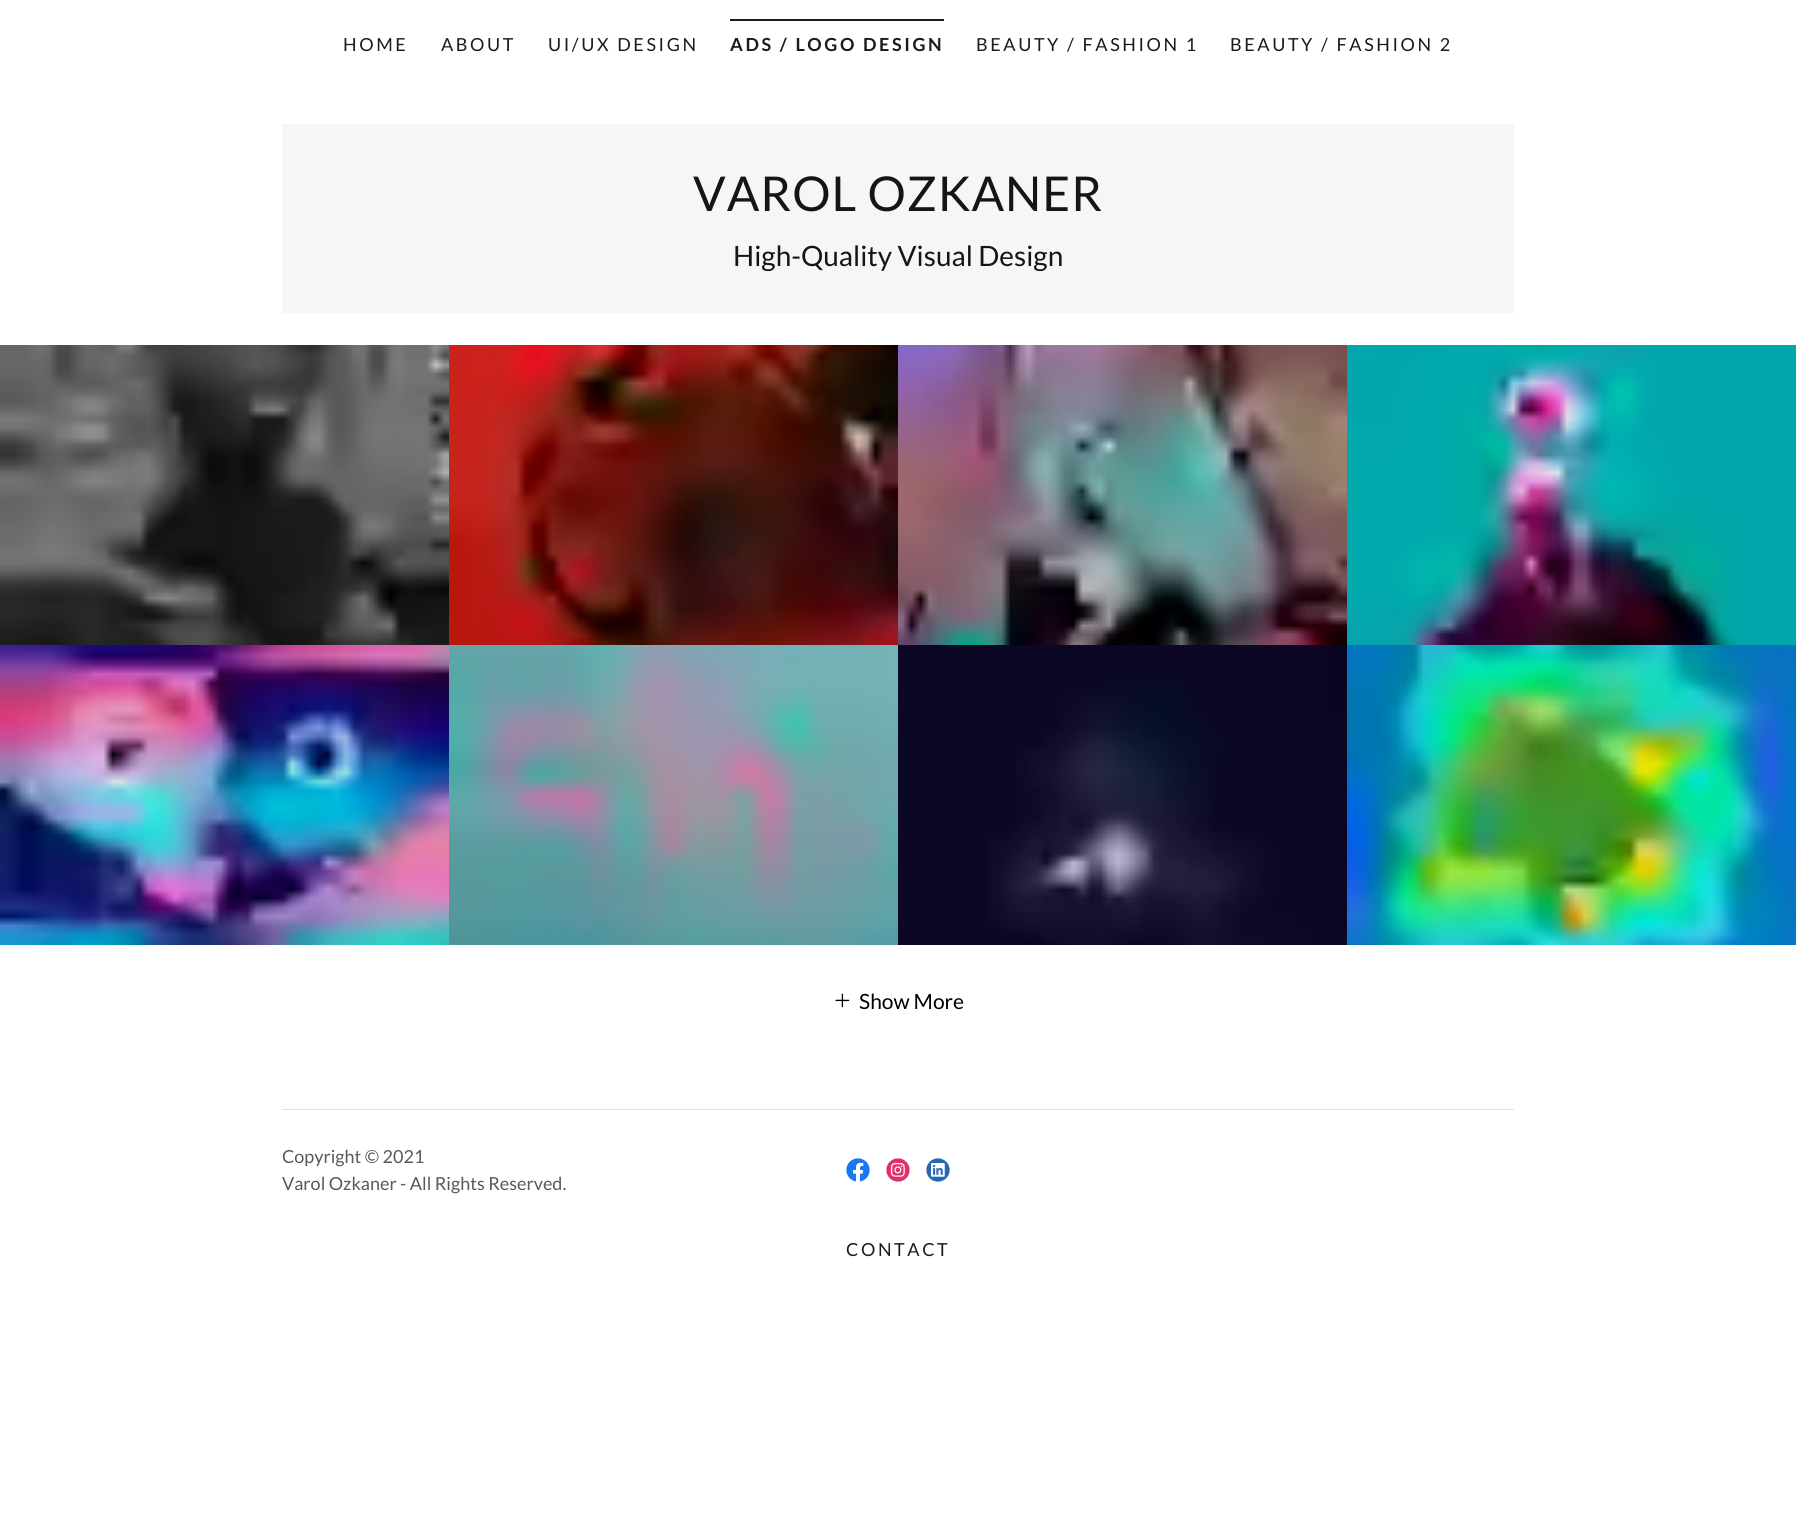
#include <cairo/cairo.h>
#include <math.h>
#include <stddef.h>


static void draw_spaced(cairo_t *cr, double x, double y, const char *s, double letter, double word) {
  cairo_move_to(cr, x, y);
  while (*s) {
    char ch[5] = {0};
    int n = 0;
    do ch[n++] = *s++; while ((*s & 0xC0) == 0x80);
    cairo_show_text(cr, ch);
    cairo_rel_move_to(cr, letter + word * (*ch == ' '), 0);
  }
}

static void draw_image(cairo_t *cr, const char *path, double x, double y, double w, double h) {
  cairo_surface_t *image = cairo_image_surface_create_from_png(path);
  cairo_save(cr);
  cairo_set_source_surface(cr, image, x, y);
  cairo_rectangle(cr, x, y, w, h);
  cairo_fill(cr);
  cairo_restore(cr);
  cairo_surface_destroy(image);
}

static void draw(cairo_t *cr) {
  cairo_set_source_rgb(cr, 1, 1, 1);
  cairo_paint(cr);
  cairo_set_source_rgb(cr, 27 / 255.0, 27 / 255.0, 27 / 255.0);
  cairo_rectangle(cr, 730, 19, 214, 2);
  cairo_fill(cr);
  cairo_set_source_rgb(cr, 246 / 255.0, 246 / 255.0, 246 / 255.0);
  cairo_rectangle(cr, 282, 124, 1232, 189);
  cairo_fill(cr);
  draw_image(cr, "images/1.png", 0, 345, 449, 300);
  draw_image(cr, "images/2.png", 449, 345, 449, 300);
  draw_image(cr, "images/3.png", 898, 345, 449, 300);
  draw_image(cr, "images/4.png", 1347, 345, 449, 300);
  draw_image(cr, "images/5.png", 0, 645, 449, 300);
  draw_image(cr, "images/6.png", 449, 645, 449, 300);
  draw_image(cr, "images/7.png", 898, 645, 449, 300);
  draw_image(cr, "images/8.png", 1347, 645, 449, 300);
  draw_image(cr, "images/9.png", 835, 993, 15, 15);
  cairo_set_source_rgb(cr, 226 / 255.0, 226 / 255.0, 226 / 255.0);
  cairo_rectangle(cr, 282, 1109, 1232, 1);
  cairo_fill(cr);
  draw_image(cr, "images/10.png", 846, 1158, 24, 24);
  draw_image(cr, "images/11.png", 886, 1158, 24, 24);
  draw_image(cr, "images/12.png", 926, 1158, 24, 24);
  cairo_select_font_face(cr, "Lato", CAIRO_FONT_SLANT_NORMAL, CAIRO_FONT_WEIGHT_NORMAL);
  cairo_set_font_size(cr, 18);
  cairo_set_source_rgb(cr, 27 / 255.0, 27 / 255.0, 27 / 255.0);
  draw_spaced(cr, 343, 51, "HOME", 2.6, 0);
  draw_spaced(cr, 441, 51, "ABOUT", 2.6, 0);
  draw_spaced(cr, 548, 51, "UI/UX DESIGN", 2.6, 0);
  cairo_select_font_face(cr, "Lato", CAIRO_FONT_SLANT_NORMAL, CAIRO_FONT_WEIGHT_BOLD);
  draw_spaced(cr, 730, 51, "ADS / LOGO DESIGN", 2.6, 0);
  cairo_select_font_face(cr, "Lato", CAIRO_FONT_SLANT_NORMAL, CAIRO_FONT_WEIGHT_NORMAL);
  draw_spaced(cr, 976, 51, "BEAUTY / FASHION 1", 2.6, 0);
  draw_spaced(cr, 1230, 51, "BEAUTY / FASHION 2", 2.6, 0);
  cairo_set_font_size(cr, 48);
  cairo_set_source_rgb(cr, 21 / 255.0, 21 / 255.0, 21 / 255.0);
  draw_spaced(cr, 693, 211, "VAROL OZKANER", 1, 0);
  cairo_set_font_size(cr, 28);
  cairo_move_to(cr, 733, 266);
  cairo_show_text(cr, "High-Quality Visual Design");
  cairo_set_font_size(cr, 21);
  cairo_set_source_rgb(cr, 0, 0, 0);
  cairo_move_to(cr, 859, 1009);
  cairo_show_text(cr, "Show More");
  cairo_set_font_size(cr, 18);
  cairo_set_source_rgb(cr, 89 / 255.0, 89 / 255.0, 89 / 255.0);
  cairo_move_to(cr, 282, 1163);
  cairo_show_text(cr, "Copyright © 2021");
  cairo_move_to(cr, 282, 1190);
  cairo_show_text(cr, "Varol Ozkaner - All Rights Reserved.");
  cairo_set_source_rgb(cr, 27 / 255.0, 27 / 255.0, 27 / 255.0);
  draw_spaced(cr, 846, 1256, "CONTACT", 2.6, 0);
}

int main(void) {
  cairo_surface_t *surface = cairo_image_surface_create(CAIRO_FORMAT_RGB24, 1796, 1523);
  cairo_t *cr = cairo_create(surface);
  cairo_font_options_t *options = cairo_font_options_create();
  cairo_font_options_set_hint_metrics(options, CAIRO_HINT_METRICS_OFF);
  cairo_font_options_set_hint_style(options, CAIRO_HINT_STYLE_NONE);
  cairo_set_font_options(cr, options);
  cairo_set_miter_limit(cr, 4);
  draw(cr);
  cairo_surface_write_to_png(surface, "out.png");
  cairo_font_options_destroy(options);
  cairo_destroy(cr);
  cairo_surface_destroy(surface);
  return 0;
}
